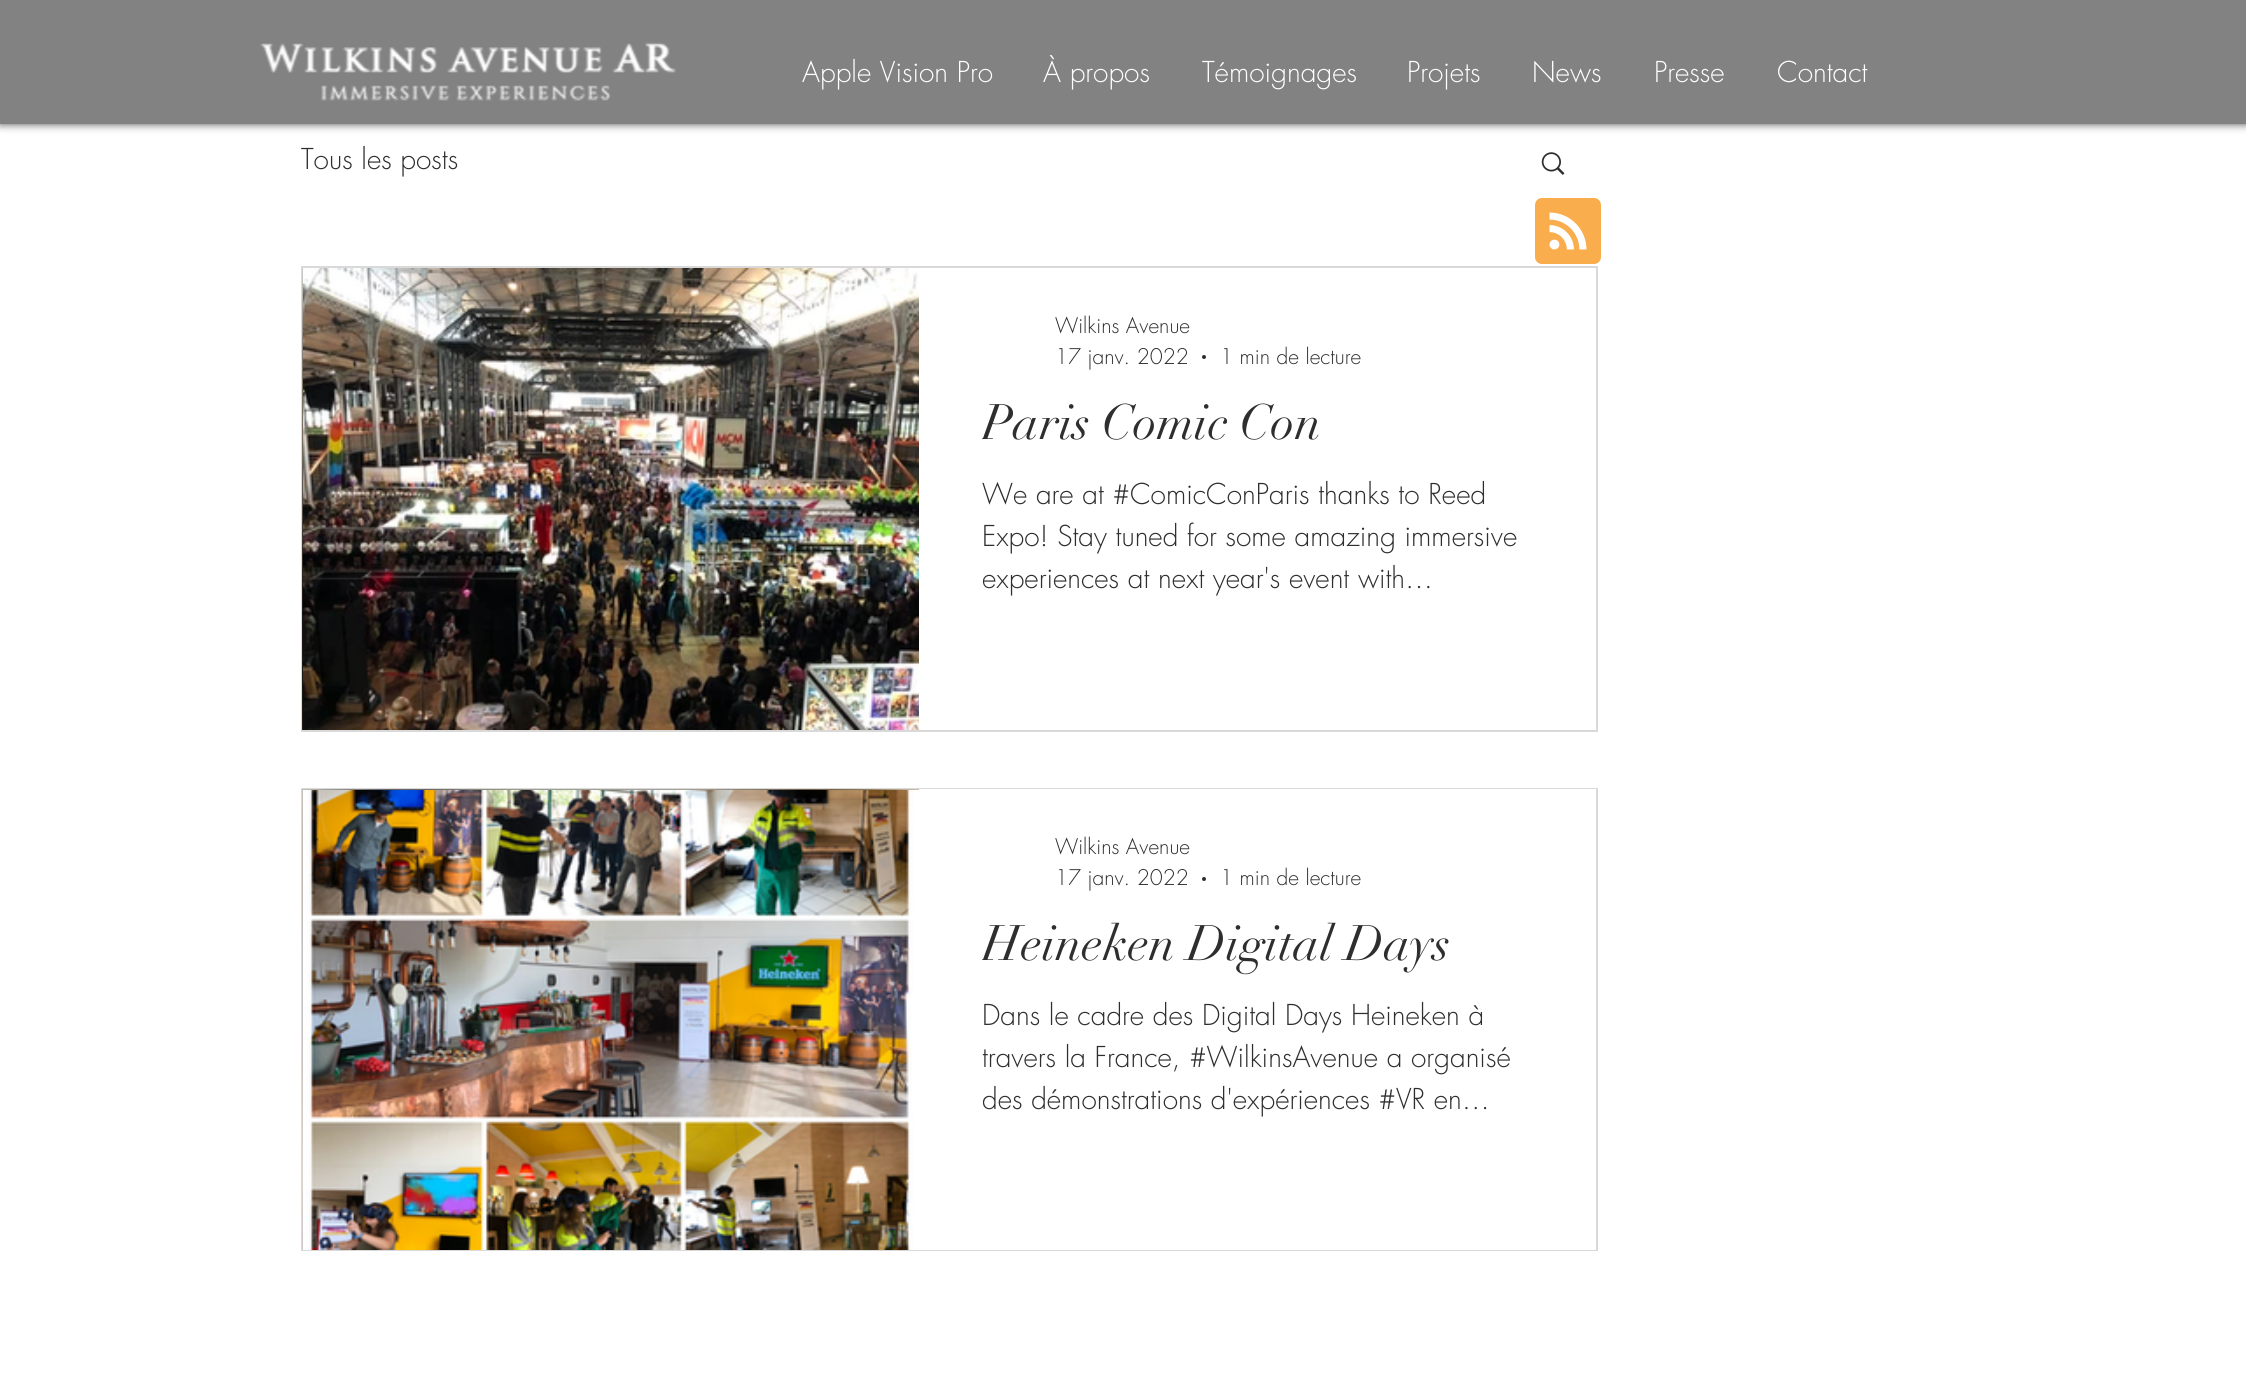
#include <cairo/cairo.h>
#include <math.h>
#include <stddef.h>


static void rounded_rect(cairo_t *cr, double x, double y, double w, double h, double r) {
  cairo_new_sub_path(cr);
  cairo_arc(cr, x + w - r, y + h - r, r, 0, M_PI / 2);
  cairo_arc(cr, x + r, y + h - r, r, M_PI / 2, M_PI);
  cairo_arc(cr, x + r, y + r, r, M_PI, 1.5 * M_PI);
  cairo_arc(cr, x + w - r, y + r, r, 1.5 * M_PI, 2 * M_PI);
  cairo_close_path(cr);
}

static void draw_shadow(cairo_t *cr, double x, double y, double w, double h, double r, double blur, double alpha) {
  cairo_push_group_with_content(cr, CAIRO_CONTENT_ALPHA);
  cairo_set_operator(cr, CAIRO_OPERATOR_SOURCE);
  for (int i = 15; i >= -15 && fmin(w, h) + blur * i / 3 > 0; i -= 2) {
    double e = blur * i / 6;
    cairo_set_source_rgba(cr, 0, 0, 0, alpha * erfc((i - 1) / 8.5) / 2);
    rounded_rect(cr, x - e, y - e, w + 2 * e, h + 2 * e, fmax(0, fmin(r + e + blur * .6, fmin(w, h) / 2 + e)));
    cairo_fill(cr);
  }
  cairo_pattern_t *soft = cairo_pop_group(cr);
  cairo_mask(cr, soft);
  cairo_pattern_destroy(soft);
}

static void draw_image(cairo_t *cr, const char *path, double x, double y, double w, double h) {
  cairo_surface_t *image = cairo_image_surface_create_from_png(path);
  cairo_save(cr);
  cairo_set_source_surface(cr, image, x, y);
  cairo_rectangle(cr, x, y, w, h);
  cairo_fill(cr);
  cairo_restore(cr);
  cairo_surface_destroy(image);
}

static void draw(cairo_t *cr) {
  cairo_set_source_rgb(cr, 1, 1, 1);
  cairo_paint(cr);
  cairo_set_source_rgb(cr, 0, 0, 0);
  draw_shadow(cr, 0, 0, 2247, 124, 0, 4.5, 0.7);
  cairo_set_source_rgb(cr, 131 / 255.0, 130 / 255.0, 130 / 255.0);
  cairo_rectangle(cr, 0, 0, 2246, 124);
  cairo_fill(cr);
  draw_image(cr, "images/1.png", 260, 42, 416, 59);
  draw_image(cr, "images/2.png", 1541, 152, 24, 23);
  cairo_rectangle(cr, 302, 267, 1295, 464);
  cairo_set_source_rgb(cr, 217 / 255.0, 217 / 255.0, 217 / 255.0);
  cairo_stroke(cr);
  draw_image(cr, "images/3.png", 302, 268, 1, 462);
  draw_image(cr, "images/4.png", 303, 268, 616, 462);
  cairo_set_source_rgb(cr, 47 / 255.0, 46 / 255.0, 46 / 255.0);
  cairo_arc(cr, 1204, 357, 2, 0, 2 * M_PI);
  cairo_fill(cr);
  cairo_rectangle(cr, 302, 789, 1295, 461);
  cairo_set_source_rgb(cr, 217 / 255.0, 217 / 255.0, 217 / 255.0);
  cairo_stroke(cr);
  draw_image(cr, "images/5.png", 302, 789, 617, 461);
  draw_image(cr, "images/6.png", 303, 790, 616, 460);
  cairo_set_source_rgb(cr, 1, 1, 1);
  cairo_rectangle(cr, 919, 789, 677, 461);
  cairo_fill(cr);
  cairo_set_source_rgb(cr, 47 / 255.0, 46 / 255.0, 46 / 255.0);
  cairo_arc(cr, 1204, 879, 2, 0, 2 * M_PI);
  cairo_fill(cr);
  draw_image(cr, "images/7.png", 1535, 198, 66, 66);
  cairo_select_font_face(cr, "futura Light", CAIRO_FONT_SLANT_NORMAL, CAIRO_FONT_WEIGHT_NORMAL);
  cairo_set_font_size(cr, 28);
  cairo_set_source_rgb(cr, 1, 1, 1);
  cairo_move_to(cr, 802, 82);
  cairo_show_text(cr, "Apple Vision Pro");
  cairo_move_to(cr, 1043, 82);
  cairo_show_text(cr, "À propos");
  cairo_move_to(cr, 1202, 82);
  cairo_show_text(cr, "Témoignages");
  cairo_move_to(cr, 1407, 82);
  cairo_show_text(cr, "Projets");
  cairo_move_to(cr, 1532, 82);
  cairo_show_text(cr, "News");
  cairo_move_to(cr, 1654, 82);
  cairo_show_text(cr, "Presse");
  cairo_move_to(cr, 1777, 82);
  cairo_show_text(cr, "Contact");
  cairo_set_source_rgb(cr, 47 / 255.0, 46 / 255.0, 46 / 255.0);
  cairo_move_to(cr, 301, 169);
  cairo_show_text(cr, "Tous les posts");
  cairo_set_font_size(cr, 21);
  cairo_move_to(cr, 1055, 333);
  cairo_show_text(cr, "Wilkins Avenue");
  cairo_move_to(cr, 1055, 364);
  cairo_show_text(cr, "17 janv. 2022");
  cairo_move_to(cr, 1220, 364);
  cairo_show_text(cr, "1 min de lecture");
  cairo_save(cr);
  cairo_rectangle(cr, 982, 394, 551, 59);
  cairo_clip(cr);
  cairo_select_font_face(cr, "didot", CAIRO_FONT_SLANT_NORMAL, CAIRO_FONT_WEIGHT_NORMAL);
  cairo_set_font_size(cr, 49);
  cairo_move_to(cr, 982, 439);
  cairo_show_text(cr, "Paris Comic Con");
  cairo_restore(cr);
  cairo_set_font_size(cr, 28);
  cairo_move_to(cr, 982, 504);
  cairo_show_text(cr, "We are at #ComicConParis thanks to Reed");
  cairo_move_to(cr, 982, 546);
  cairo_show_text(cr, "Expo! Stay tuned for some amazing immersive");
  cairo_move_to(cr, 982, 588);
  cairo_show_text(cr, "experiences at next year's event with…");
  cairo_set_font_size(cr, 21);
  cairo_move_to(cr, 1055, 854);
  cairo_show_text(cr, "Wilkins Avenue");
  cairo_move_to(cr, 1055, 885);
  cairo_show_text(cr, "17 janv. 2022");
  cairo_move_to(cr, 1220, 885);
  cairo_show_text(cr, "1 min de lecture");
  cairo_save(cr);
  cairo_rectangle(cr, 982, 915, 551, 60);
  cairo_clip(cr);
  cairo_select_font_face(cr, "didot", CAIRO_FONT_SLANT_NORMAL, CAIRO_FONT_WEIGHT_NORMAL);
  cairo_set_font_size(cr, 49);
  cairo_move_to(cr, 982, 960);
  cairo_show_text(cr, "Heineken Digital Days");
  cairo_restore(cr);
  cairo_set_font_size(cr, 28);
  cairo_move_to(cr, 982, 1025);
  cairo_show_text(cr, "Dans le cadre des Digital Days Heineken à");
  cairo_move_to(cr, 982, 1067);
  cairo_show_text(cr, "travers la France, #WilkinsAvenue a organisé");
  cairo_move_to(cr, 982, 1109);
  cairo_show_text(cr, "des démonstrations d'expériences #VR en…");
}

int main(void) {
  cairo_surface_t *surface = cairo_image_surface_create(CAIRO_FORMAT_RGB24, 2246, 1376);
  cairo_t *cr = cairo_create(surface);
  cairo_font_options_t *options = cairo_font_options_create();
  cairo_font_options_set_hint_metrics(options, CAIRO_HINT_METRICS_OFF);
  cairo_font_options_set_hint_style(options, CAIRO_HINT_STYLE_NONE);
  cairo_set_font_options(cr, options);
  cairo_set_miter_limit(cr, 4);
  draw(cr);
  cairo_surface_write_to_png(surface, "out.png");
  cairo_font_options_destroy(options);
  cairo_destroy(cr);
  cairo_surface_destroy(surface);
  return 0;
}
